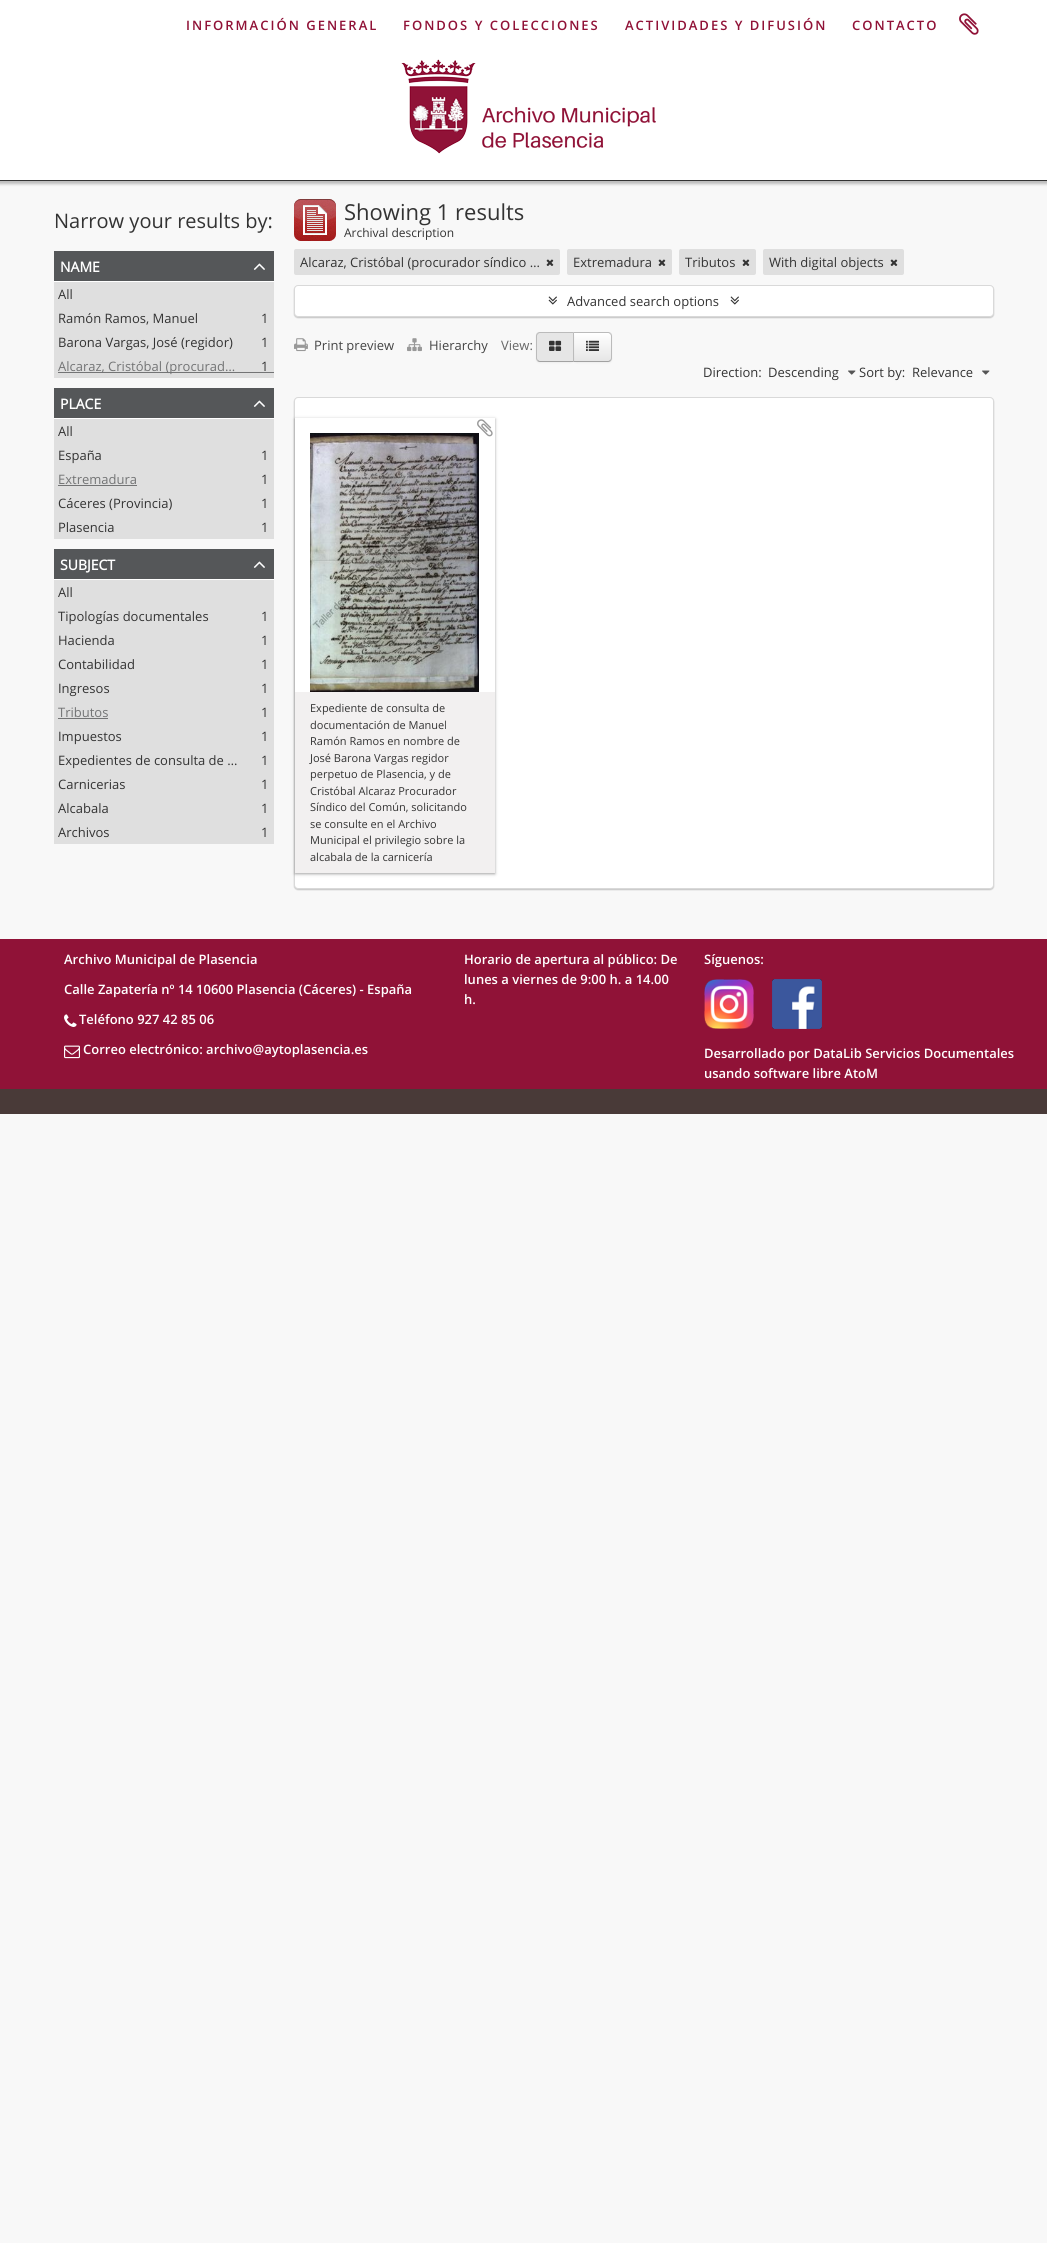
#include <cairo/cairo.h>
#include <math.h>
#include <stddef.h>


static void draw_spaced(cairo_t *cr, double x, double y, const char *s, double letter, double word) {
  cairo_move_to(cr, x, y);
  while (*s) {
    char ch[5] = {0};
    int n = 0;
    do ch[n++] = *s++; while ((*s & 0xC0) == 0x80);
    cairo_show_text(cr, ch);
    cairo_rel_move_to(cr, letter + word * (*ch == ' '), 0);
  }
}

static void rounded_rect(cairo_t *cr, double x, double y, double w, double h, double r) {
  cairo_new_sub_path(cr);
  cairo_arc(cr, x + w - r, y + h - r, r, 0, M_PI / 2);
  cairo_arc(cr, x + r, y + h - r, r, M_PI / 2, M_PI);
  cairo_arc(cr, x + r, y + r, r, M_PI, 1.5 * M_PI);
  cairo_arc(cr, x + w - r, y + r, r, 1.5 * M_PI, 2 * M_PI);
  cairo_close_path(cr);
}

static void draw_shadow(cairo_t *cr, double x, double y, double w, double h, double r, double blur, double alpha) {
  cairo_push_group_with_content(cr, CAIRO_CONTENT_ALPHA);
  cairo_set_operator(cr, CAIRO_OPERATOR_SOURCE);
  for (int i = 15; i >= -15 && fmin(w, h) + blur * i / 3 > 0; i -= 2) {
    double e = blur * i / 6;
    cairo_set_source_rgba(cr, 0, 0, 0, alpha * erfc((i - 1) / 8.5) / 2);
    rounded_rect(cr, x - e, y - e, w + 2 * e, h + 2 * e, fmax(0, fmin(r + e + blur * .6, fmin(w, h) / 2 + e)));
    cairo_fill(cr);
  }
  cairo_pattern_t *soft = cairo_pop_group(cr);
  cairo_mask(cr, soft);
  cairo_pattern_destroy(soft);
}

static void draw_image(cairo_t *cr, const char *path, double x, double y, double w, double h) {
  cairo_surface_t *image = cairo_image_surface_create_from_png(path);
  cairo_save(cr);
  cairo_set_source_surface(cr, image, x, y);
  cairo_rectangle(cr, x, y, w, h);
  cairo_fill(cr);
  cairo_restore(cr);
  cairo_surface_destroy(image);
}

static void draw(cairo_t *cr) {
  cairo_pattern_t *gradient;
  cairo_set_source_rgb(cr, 248 / 255.0, 248 / 255.0, 248 / 255.0);
  cairo_paint(cr);
  cairo_set_source_rgb(cr, 0, 0, 0);
  draw_shadow(cr, -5, 3, 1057, 181, 0, 1.5, 0.25);
  cairo_set_source_rgb(cr, 1, 1, 1);
  cairo_rectangle(cr, 0, 0, 1047, 180);
  cairo_fill(cr);
  cairo_set_source_rgb(cr, 51 / 255.0, 51 / 255.0, 51 / 255.0);
  cairo_rectangle(cr, 0, 180, 1047, 1);
  cairo_fill(cr);
  draw_image(cr, "images/1.png", 959, 13, 20, 22);
  draw_image(cr, "images/2.png", 401, 59, 255, 95);
  cairo_set_source_rgb(cr, 1, 1, 1);
  cairo_rectangle(cr, 54, 281, 220, 1);
  cairo_fill(cr);
  cairo_set_source_rgb(cr, 85 / 255.0, 87 / 255.0, 89 / 255.0);
  cairo_rectangle(cr, 54, 251, 220, 30);
  cairo_fill(cr);
  draw_image(cr, "images/3.png", 253, 263, 12, 7);
  cairo_set_source_rgb(cr, 223 / 255.0, 223 / 255.0, 223 / 255.0);
  cairo_rectangle(cr, 54, 282, 220, 96);
  cairo_fill(cr);
  cairo_set_source_rgb(cr, 115 / 255.0, 116 / 255.0, 117 / 255.0);
  cairo_rectangle(cr, 58, 372, 216, 1);
  cairo_fill(cr);
  cairo_set_source_rgb(cr, 1, 1, 1);
  cairo_rectangle(cr, 54, 418, 220, 1);
  cairo_fill(cr);
  cairo_set_source_rgb(cr, 85 / 255.0, 87 / 255.0, 89 / 255.0);
  cairo_rectangle(cr, 54, 388, 220, 30);
  cairo_fill(cr);
  draw_image(cr, "images/3.png", 253, 400, 12, 7);
  cairo_set_source_rgb(cr, 223 / 255.0, 223 / 255.0, 223 / 255.0);
  cairo_rectangle(cr, 54, 419, 220, 120);
  cairo_fill(cr);
  cairo_set_source_rgb(cr, 115 / 255.0, 116 / 255.0, 117 / 255.0);
  cairo_rectangle(cr, 58, 485, 79, 1);
  cairo_fill(cr);
  cairo_set_source_rgb(cr, 1, 1, 1);
  cairo_rectangle(cr, 54, 579, 220, 1);
  cairo_fill(cr);
  cairo_set_source_rgb(cr, 85 / 255.0, 87 / 255.0, 89 / 255.0);
  cairo_rectangle(cr, 54, 549, 220, 30);
  cairo_fill(cr);
  draw_image(cr, "images/3.png", 253, 561, 12, 7);
  cairo_set_source_rgb(cr, 223 / 255.0, 223 / 255.0, 223 / 255.0);
  cairo_rectangle(cr, 54, 580, 220, 264);
  cairo_fill(cr);
  cairo_set_source_rgb(cr, 115 / 255.0, 116 / 255.0, 117 / 255.0);
  cairo_rectangle(cr, 58, 718, 50, 1);
  cairo_fill(cr);
  draw_image(cr, "images/4.png", 294, 199, 42, 42);
  cairo_set_source_rgb(cr, 223 / 255.0, 223 / 255.0, 223 / 255.0);
  rounded_rect(cr, 294, 249, 266, 26, 2);
  cairo_fill(cr);
  draw_image(cr, "images/5.png", 546, 259, 8, 7);
  rounded_rect(cr, 567, 249, 105, 26, 2);
  cairo_fill(cr);
  draw_image(cr, "images/5.png", 658, 259, 8, 7);
  rounded_rect(cr, 679, 249, 77, 26, 2);
  cairo_fill(cr);
  draw_image(cr, "images/5.png", 742, 259, 8, 7);
  rounded_rect(cr, 763, 249, 141, 26, 2);
  cairo_fill(cr);
  draw_image(cr, "images/5.png", 890, 259, 8, 7);
  cairo_set_source_rgb(cr, 0, 0, 0);
  draw_shadow(cr, 294, 286, 700, 32, 4, 0.5, 0.2);
  cairo_set_source_rgb(cr, 1, 1, 1);
  rounded_rect(cr, 294.5, 285.5, 699, 31, 3.5);
  cairo_fill_preserve(cr);
  cairo_set_source_rgb(cr, 217 / 255.0, 217 / 255.0, 217 / 255.0);
  cairo_set_line_width(cr, 1);
  cairo_stroke(cr);
  draw_image(cr, "images/6.png", 548, 296, 9, 9);
  draw_image(cr, "images/6.png", 730, 296, 9, 9);
  draw_image(cr, "images/7.png", 294, 338, 14, 14);
  draw_image(cr, "images/8.png", 407, 338, 15, 14);
  cairo_set_source_rgb(cr, 0, 0, 0);
  draw_shadow(cr, 573, 333, 39, 30, 4, 1, 0.05);
  cairo_save(cr);
  cairo_new_path(cr);
  cairo_move_to(cr, 573, 332);
  cairo_line_to(cr, 608, 332);
  cairo_curve_to(cr, 610, 332, 612, 334, 612, 336);
  cairo_line_to(cr, 612, 358);
  cairo_curve_to(cr, 612, 360, 610, 362, 608, 362);
  cairo_line_to(cr, 573, 362);
  cairo_close_path(cr);
  cairo_clip(cr);
  gradient = cairo_pattern_create_linear(593, 333, 593, 361);
  cairo_pattern_add_color_stop_rgba(gradient, 0, 1, 1, 1, 1);
  cairo_pattern_add_color_stop_rgba(gradient, 1, 230 / 255.0, 230 / 255.0, 230 / 255.0, 1);
  cairo_set_source(cr, gradient);
  cairo_pattern_destroy(gradient);
  cairo_rectangle(cr, 574, 333, 38, 28);
  cairo_fill(cr);
  cairo_restore(cr);
  cairo_set_source_rgb(cr, 187 / 255.0, 187 / 255.0, 187 / 255.0);
  cairo_new_path(cr);
  cairo_move_to(cr, 573, 332);
  cairo_line_to(cr, 574, 333);
  cairo_line_to(cr, 608, 333);
  cairo_curve_to(cr, 609, 333, 609.5, 333.5, 610, 334);
  cairo_line_to(cr, 611, 333);
  cairo_curve_to(cr, 610, 332.5, 609, 332, 608, 332);
  cairo_close_path(cr);
  cairo_fill(cr);
  cairo_new_path(cr);
  cairo_move_to(cr, 612, 358);
  cairo_line_to(cr, 612, 336);
  cairo_curve_to(cr, 612, 335, 611.5, 334, 611, 333);
  cairo_line_to(cr, 610, 334);
  cairo_curve_to(cr, 610.5, 334.5, 611, 335, 611, 336);
  cairo_line_to(cr, 611, 358);
  cairo_curve_to(cr, 611, 359, 610.5, 359.5, 610, 360);
  cairo_line_to(cr, 611, 361);
  cairo_curve_to(cr, 611.5, 360, 612, 359, 612, 358);
  cairo_close_path(cr);
  cairo_fill(cr);
  cairo_set_source_rgb(cr, 162 / 255.0, 162 / 255.0, 162 / 255.0);
  cairo_new_path(cr);
  cairo_move_to(cr, 608, 362);
  cairo_curve_to(cr, 609, 362, 610, 361.5, 611, 361);
  cairo_line_to(cr, 610, 360);
  cairo_curve_to(cr, 609.5, 360.5, 609, 361, 608, 361);
  cairo_line_to(cr, 574, 361);
  cairo_line_to(cr, 573, 362);
  cairo_close_path(cr);
  cairo_fill(cr);
  cairo_set_source_rgb(cr, 0, 0, 0);
  draw_shadow(cr, 536, 333, 38, 30, 4, 1, 0.05);
  cairo_set_source_rgb(cr, 230 / 255.0, 230 / 255.0, 230 / 255.0);
  cairo_new_path(cr);
  cairo_move_to(cr, 540, 332);
  cairo_line_to(cr, 574, 332);
  cairo_line_to(cr, 574, 362);
  cairo_line_to(cr, 540, 362);
  cairo_curve_to(cr, 538, 362, 536, 360, 536, 358);
  cairo_line_to(cr, 536, 336);
  cairo_curve_to(cr, 536, 334, 538, 332, 540, 332);
  cairo_close_path(cr);
  cairo_fill(cr);
  cairo_set_source_rgb(cr, 187 / 255.0, 187 / 255.0, 187 / 255.0);
  cairo_new_path(cr);
  cairo_move_to(cr, 540, 332);
  cairo_curve_to(cr, 539, 332, 538, 332.5, 537, 333);
  cairo_line_to(cr, 538, 334);
  cairo_curve_to(cr, 538.5, 333.5, 539, 333, 540, 333);
  cairo_line_to(cr, 573, 333);
  cairo_line_to(cr, 574, 332);
  cairo_close_path(cr);
  cairo_fill(cr);
  cairo_new_path(cr);
  cairo_move_to(cr, 574, 332);
  cairo_line_to(cr, 573, 333);
  cairo_line_to(cr, 573, 361);
  cairo_line_to(cr, 574, 362);
  cairo_close_path(cr);
  cairo_fill(cr);
  cairo_set_source_rgb(cr, 162 / 255.0, 162 / 255.0, 162 / 255.0);
  cairo_new_path(cr);
  cairo_move_to(cr, 574, 362);
  cairo_line_to(cr, 573, 361);
  cairo_line_to(cr, 540, 361);
  cairo_curve_to(cr, 539, 361, 538.5, 360.5, 538, 360);
  cairo_line_to(cr, 537, 361);
  cairo_curve_to(cr, 538, 361.5, 539, 362, 540, 362);
  cairo_close_path(cr);
  cairo_fill(cr);
  cairo_set_source_rgb(cr, 187 / 255.0, 187 / 255.0, 187 / 255.0);
  cairo_new_path(cr);
  cairo_move_to(cr, 536, 336);
  cairo_line_to(cr, 536, 358);
  cairo_curve_to(cr, 536, 359, 536.5, 360, 537, 361);
  cairo_line_to(cr, 538, 360);
  cairo_curve_to(cr, 537.5, 359.5, 537, 359, 537, 358);
  cairo_line_to(cr, 537, 336);
  cairo_curve_to(cr, 537, 335, 537.5, 334.5, 538, 334);
  cairo_line_to(cr, 537, 333);
  cairo_curve_to(cr, 536.5, 334, 536, 335, 536, 336);
  cairo_close_path(cr);
  cairo_fill(cr);
  draw_image(cr, "images/9.png", 549, 340, 13, 11);
  draw_image(cr, "images/10.png", 586, 340, 13, 11);
  draw_image(cr, "images/11.png", 848, 370, 8, 5);
  draw_image(cr, "images/11.png", 982, 370, 8, 5);
  cairo_set_source_rgb(cr, 0, 0, 0);
  draw_shadow(cr, 294, 398, 700, 492, 4, 0.5, 0.2);
  cairo_set_source_rgb(cr, 1, 1, 1);
  rounded_rect(cr, 294.5, 397.5, 699, 491, 3.5);
  cairo_fill_preserve(cr);
  cairo_set_source_rgb(cr, 217 / 255.0, 217 / 255.0, 217 / 255.0);
  cairo_stroke(cr);
  cairo_save(cr);
  cairo_set_fill_rule(cr, CAIRO_FILL_RULE_EVEN_ODD);
  cairo_new_path(cr);
  cairo_move_to(cr, 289, 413);
  cairo_line_to(cr, 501, 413);
  cairo_line_to(cr, 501, 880);
  cairo_line_to(cr, 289, 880);
  cairo_close_path(cr);
  cairo_move_to(cr, 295, 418);
  cairo_line_to(cr, 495, 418);
  cairo_line_to(cr, 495, 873);
  cairo_line_to(cr, 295, 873);
  cairo_close_path(cr);
  cairo_clip(cr);
  cairo_set_source_rgb(cr, 25 / 255.0, 25 / 255.0, 25 / 255.0);
  draw_shadow(cr, 295, 419, 200, 455, 0, 1.5, 0.4);
  cairo_restore(cr);
  draw_image(cr, "images/12.png", 310, 433, 169, 259);
  cairo_set_source_rgb(cr, 242 / 255.0, 240 / 255.0, 240 / 255.0);
  cairo_rectangle(cr, 295, 692, 200, 181);
  cairo_fill(cr);
  draw_image(cr, "images/13.png", 477, 419, 16, 18);
  cairo_set_source_rgb(cr, 144 / 255.0, 18 / 255.0, 55 / 255.0);
  cairo_rectangle(cr, 0, 939, 1047, 150);
  cairo_fill(cr);
  cairo_set_source_rgb(cr, 73 / 255.0, 58 / 255.0, 56 / 255.0);
  cairo_rectangle(cr, 0, 1089, 1047, 25);
  cairo_fill(cr);
  draw_image(cr, "images/14.png", 64, 1014, 13, 13);
  draw_image(cr, "images/15.png", 64, 1045, 16, 14);
  draw_image(cr, "images/16.png", 704, 979, 50, 50);
  draw_image(cr, "images/17.png", 772, 979, 50, 50);
  cairo_select_font_face(cr, "Open Sans SemiBold", CAIRO_FONT_SLANT_NORMAL, CAIRO_FONT_WEIGHT_NORMAL);
  cairo_set_font_size(cr, 13);
  cairo_set_source_rgb(cr, 144 / 255.0, 18 / 255.0, 55 / 255.0);
  draw_spaced(cr, 186, 30, "INFORMACIÓN GENERAL", 2, 0);
  draw_spaced(cr, 403, 30, "FONDOS Y COLECCIONES", 2, 0);
  draw_spaced(cr, 625, 30, "ACTIVIDADES Y DIFUSIÓN", 2, 0);
  draw_spaced(cr, 852, 30, "CONTACTO", 2, 0);
  cairo_select_font_face(cr, "Open Sans", CAIRO_FONT_SLANT_NORMAL, CAIRO_FONT_WEIGHT_NORMAL);
  cairo_set_font_size(cr, 20);
  cairo_set_source_rgb(cr, 51 / 255.0, 51 / 255.0, 51 / 255.0);
  cairo_move_to(cr, 54, 228);
  cairo_show_text(cr, "Narrow your results by:");
  cairo_select_font_face(cr, "Open Sans", CAIRO_FONT_SLANT_NORMAL, CAIRO_FONT_WEIGHT_BOLD);
  cairo_set_font_size(cr, 14);
  cairo_set_source_rgb(cr, 1, 1, 1);
  cairo_move_to(cr, 60, 272);
  cairo_show_text(cr, "NAME");
  cairo_select_font_face(cr, "Open Sans", CAIRO_FONT_SLANT_NORMAL, CAIRO_FONT_WEIGHT_NORMAL);
  cairo_set_font_size(cr, 13);
  cairo_set_source_rgb(cr, 51 / 255.0, 51 / 255.0, 51 / 255.0);
  cairo_move_to(cr, 58, 299);
  cairo_show_text(cr, "All");
  cairo_move_to(cr, 58, 323);
  cairo_show_text(cr, "Ramón Ramos, Manuel");
  cairo_move_to(cr, 261, 323);
  cairo_show_text(cr, "1");
  cairo_move_to(cr, 58, 347);
  cairo_show_text(cr, "Barona Vargas, José (regidor)");
  cairo_move_to(cr, 261, 347);
  cairo_show_text(cr, "1");
  cairo_set_source_rgb(cr, 115 / 255.0, 116 / 255.0, 117 / 255.0);
  cairo_move_to(cr, 58, 371);
  cairo_show_text(cr, "Alcaraz, Cristóbal (procurad…");
  cairo_set_source_rgb(cr, 51 / 255.0, 51 / 255.0, 51 / 255.0);
  cairo_move_to(cr, 261, 371);
  cairo_show_text(cr, "1");
  cairo_select_font_face(cr, "Open Sans", CAIRO_FONT_SLANT_NORMAL, CAIRO_FONT_WEIGHT_BOLD);
  cairo_set_font_size(cr, 14);
  cairo_set_source_rgb(cr, 1, 1, 1);
  cairo_move_to(cr, 60, 409);
  cairo_show_text(cr, "PLACE");
  cairo_select_font_face(cr, "Open Sans", CAIRO_FONT_SLANT_NORMAL, CAIRO_FONT_WEIGHT_NORMAL);
  cairo_set_font_size(cr, 13);
  cairo_set_source_rgb(cr, 51 / 255.0, 51 / 255.0, 51 / 255.0);
  cairo_move_to(cr, 58, 436);
  cairo_show_text(cr, "All");
  cairo_move_to(cr, 58, 460);
  cairo_show_text(cr, "España");
  cairo_move_to(cr, 261, 460);
  cairo_show_text(cr, "1");
  cairo_set_source_rgb(cr, 115 / 255.0, 116 / 255.0, 117 / 255.0);
  cairo_move_to(cr, 58, 484);
  cairo_show_text(cr, "Extremadura");
  cairo_set_source_rgb(cr, 51 / 255.0, 51 / 255.0, 51 / 255.0);
  cairo_move_to(cr, 261, 484);
  cairo_show_text(cr, "1");
  cairo_move_to(cr, 58, 508);
  cairo_show_text(cr, "Cáceres (Provincia)");
  cairo_move_to(cr, 261, 508);
  cairo_show_text(cr, "1");
  cairo_move_to(cr, 58, 532);
  cairo_show_text(cr, "Plasencia");
  cairo_move_to(cr, 261, 532);
  cairo_show_text(cr, "1");
  cairo_select_font_face(cr, "Open Sans", CAIRO_FONT_SLANT_NORMAL, CAIRO_FONT_WEIGHT_BOLD);
  cairo_set_font_size(cr, 14);
  cairo_set_source_rgb(cr, 1, 1, 1);
  cairo_move_to(cr, 60, 570);
  cairo_show_text(cr, "SUBJECT");
  cairo_select_font_face(cr, "Open Sans", CAIRO_FONT_SLANT_NORMAL, CAIRO_FONT_WEIGHT_NORMAL);
  cairo_set_font_size(cr, 13);
  cairo_set_source_rgb(cr, 51 / 255.0, 51 / 255.0, 51 / 255.0);
  cairo_move_to(cr, 58, 597);
  cairo_show_text(cr, "All");
  cairo_move_to(cr, 58, 621);
  cairo_show_text(cr, "Tipologías documentales");
  cairo_move_to(cr, 261, 621);
  cairo_show_text(cr, "1");
  cairo_move_to(cr, 58, 645);
  cairo_show_text(cr, "Hacienda");
  cairo_move_to(cr, 261, 645);
  cairo_show_text(cr, "1");
  cairo_move_to(cr, 58, 669);
  cairo_show_text(cr, "Contabilidad");
  cairo_move_to(cr, 261, 669);
  cairo_show_text(cr, "1");
  cairo_move_to(cr, 58, 693);
  cairo_show_text(cr, "Ingresos");
  cairo_move_to(cr, 261, 693);
  cairo_show_text(cr, "1");
  cairo_set_source_rgb(cr, 115 / 255.0, 116 / 255.0, 117 / 255.0);
  cairo_move_to(cr, 58, 717);
  cairo_show_text(cr, "Tributos");
  cairo_set_source_rgb(cr, 51 / 255.0, 51 / 255.0, 51 / 255.0);
  cairo_move_to(cr, 261, 717);
  cairo_show_text(cr, "1");
  cairo_move_to(cr, 58, 741);
  cairo_show_text(cr, "Impuestos");
  cairo_move_to(cr, 261, 741);
  cairo_show_text(cr, "1");
  cairo_move_to(cr, 58, 765);
  cairo_show_text(cr, "Expedientes de consulta de …");
  cairo_move_to(cr, 261, 765);
  cairo_show_text(cr, "1");
  cairo_move_to(cr, 58, 789);
  cairo_show_text(cr, "Carnicerias");
  cairo_move_to(cr, 261, 789);
  cairo_show_text(cr, "1");
  cairo_move_to(cr, 58, 813);
  cairo_show_text(cr, "Alcabala");
  cairo_move_to(cr, 261, 813);
  cairo_show_text(cr, "1");
  cairo_move_to(cr, 58, 837);
  cairo_show_text(cr, "Archivos");
  cairo_move_to(cr, 261, 837);
  cairo_show_text(cr, "1");
  cairo_set_font_size(cr, 22);
  cairo_move_to(cr, 344, 220);
  cairo_show_text(cr, "Showing 1 results");
  cairo_set_font_size(cr, 12);
  cairo_move_to(cr, 344, 237);
  cairo_show_text(cr, "Archival description");
  cairo_set_font_size(cr, 13);
  cairo_move_to(cr, 300, 267);
  cairo_show_text(cr, "Alcaraz, Cristóbal (procurador síndico …");
  cairo_move_to(cr, 573, 267);
  cairo_show_text(cr, "Extremadura");
  cairo_move_to(cr, 685, 267);
  cairo_show_text(cr, "Tributos");
  cairo_move_to(cr, 769, 267);
  cairo_show_text(cr, "With digital objects");
  cairo_move_to(cr, 567, 306);
  cairo_show_text(cr, "Advanced search options");
  cairo_set_source_rgb(cr, 68 / 255.0, 68 / 255.0, 68 / 255.0);
  cairo_move_to(cr, 314, 350);
  cairo_show_text(cr, "Print preview");
  cairo_move_to(cr, 429, 350);
  cairo_show_text(cr, "Hierarchy");
  cairo_set_source_rgb(cr, 102 / 255.0, 102 / 255.0, 102 / 255.0);
  cairo_move_to(cr, 501, 350);
  cairo_show_text(cr, "View:");
  cairo_set_source_rgb(cr, 51 / 255.0, 51 / 255.0, 51 / 255.0);
  cairo_move_to(cr, 703, 377);
  cairo_show_text(cr, "Direction:");
  cairo_move_to(cr, 768, 377);
  cairo_show_text(cr, "Descending");
  cairo_move_to(cr, 859, 377);
  cairo_show_text(cr, "Sort by:");
  cairo_move_to(cr, 912, 377);
  cairo_show_text(cr, "Relevance");
  cairo_set_font_size(cr, 11);
  cairo_move_to(cr, 310, 712);
  cairo_show_text(cr, "Expediente de consulta de");
  cairo_move_to(cr, 310, 729);
  cairo_show_text(cr, "documentación de Manuel");
  cairo_move_to(cr, 310, 745);
  cairo_show_text(cr, "Ramón Ramos en nombre de");
  cairo_move_to(cr, 310, 762);
  cairo_show_text(cr, "José Barona Vargas regidor");
  cairo_move_to(cr, 310, 778);
  cairo_show_text(cr, "perpetuo de Plasencia, y de");
  cairo_move_to(cr, 310, 795);
  cairo_show_text(cr, "Cristóbal Alcaraz Procurador");
  cairo_move_to(cr, 310, 811);
  cairo_show_text(cr, "Síndico del Común, solicitando");
  cairo_move_to(cr, 310, 828);
  cairo_show_text(cr, "se consulte en el Archivo");
  cairo_move_to(cr, 310, 844);
  cairo_show_text(cr, "Municipal el privilegio sobre la");
  cairo_move_to(cr, 310, 861);
  cairo_show_text(cr, "alcabala de la carnicería");
  cairo_select_font_face(cr, "Open Sans SemiBold", CAIRO_FONT_SLANT_NORMAL, CAIRO_FONT_WEIGHT_NORMAL);
  cairo_set_font_size(cr, 13);
  cairo_set_source_rgb(cr, 1, 1, 1);
  cairo_move_to(cr, 64, 964);
  cairo_show_text(cr, "Archivo Municipal de Plasencia");
  cairo_move_to(cr, 64, 994);
  cairo_show_text(cr, "Calle Zapatería nº 14 10600 Plasencia (Cáceres) - España");
  cairo_move_to(cr, 79, 1024);
  cairo_show_text(cr, "Teléfono 927 42 85 06");
  cairo_move_to(cr, 83, 1054);
  cairo_show_text(cr, "Correo electrónico: archivo@aytoplasencia.es");
  cairo_move_to(cr, 464, 964);
  cairo_show_text(cr, "Horario de apertura al público: De");
  cairo_move_to(cr, 464, 984);
  cairo_show_text(cr, "lunes a viernes de 9:00 h. a 14.00");
  cairo_move_to(cr, 464, 1004);
  cairo_show_text(cr, "h.");
  cairo_move_to(cr, 704, 964);
  cairo_show_text(cr, "Síguenos:");
  cairo_move_to(cr, 704, 1058);
  cairo_show_text(cr, "Desarrollado por DataLib Servicios Documentales");
  cairo_move_to(cr, 704, 1078);
  cairo_show_text(cr, "usando software libre AtoM");
}

int main(void) {
  cairo_surface_t *surface = cairo_image_surface_create(CAIRO_FORMAT_RGB24, 1047, 2243);
  cairo_t *cr = cairo_create(surface);
  cairo_font_options_t *options = cairo_font_options_create();
  cairo_font_options_set_hint_metrics(options, CAIRO_HINT_METRICS_OFF);
  cairo_font_options_set_hint_style(options, CAIRO_HINT_STYLE_NONE);
  cairo_set_font_options(cr, options);
  cairo_set_miter_limit(cr, 4);
  draw(cr);
  cairo_surface_write_to_png(surface, "out.png");
  cairo_font_options_destroy(options);
  cairo_destroy(cr);
  cairo_surface_destroy(surface);
  return 0;
}
